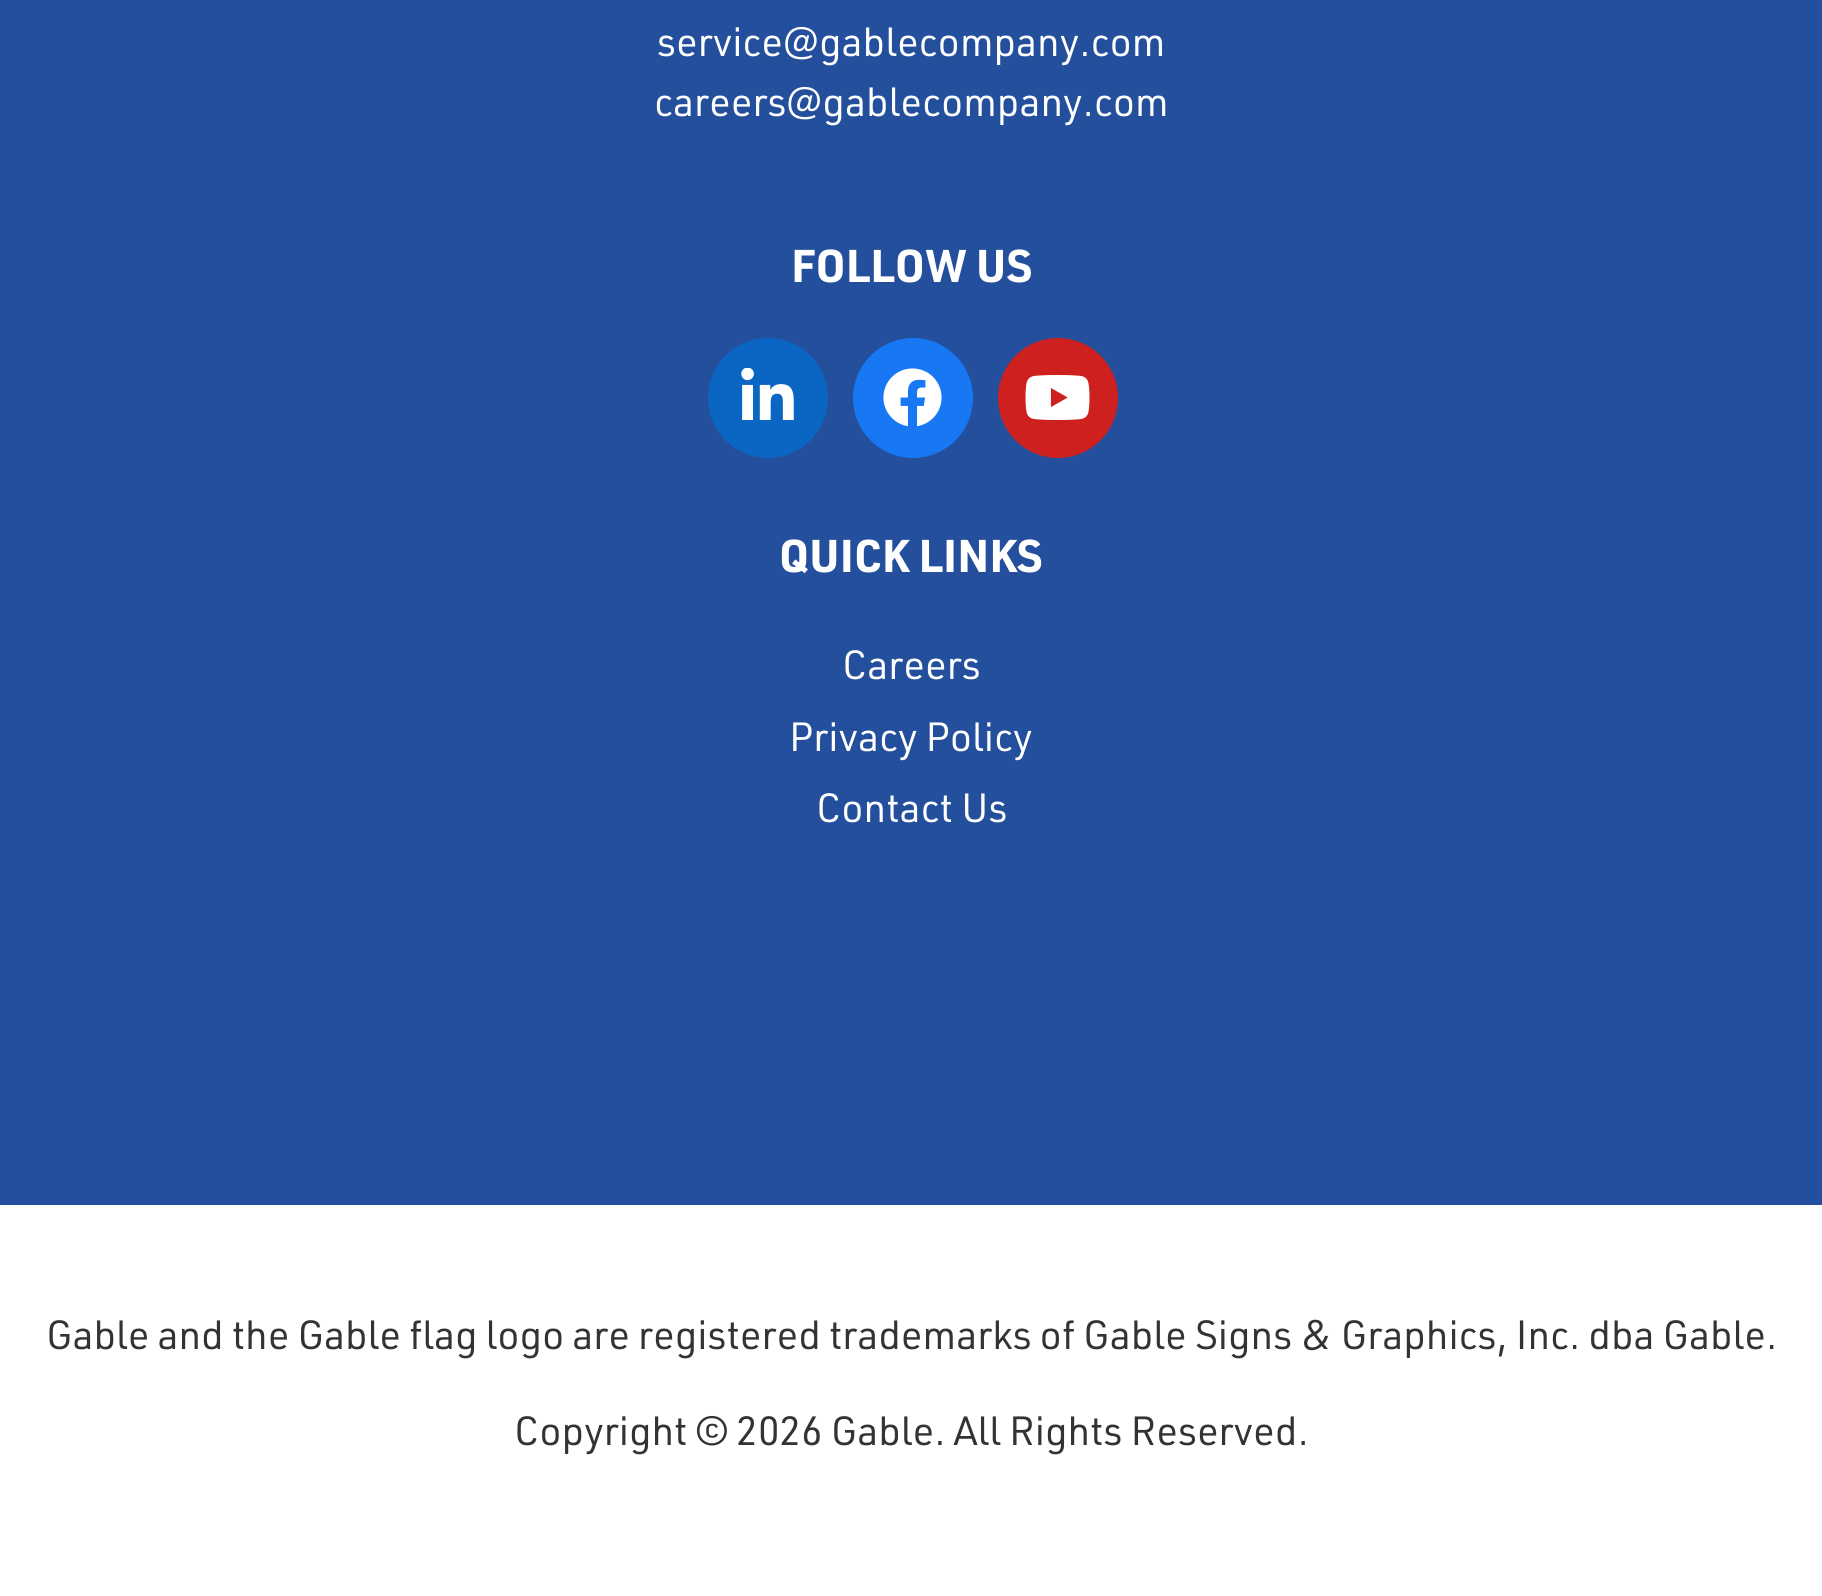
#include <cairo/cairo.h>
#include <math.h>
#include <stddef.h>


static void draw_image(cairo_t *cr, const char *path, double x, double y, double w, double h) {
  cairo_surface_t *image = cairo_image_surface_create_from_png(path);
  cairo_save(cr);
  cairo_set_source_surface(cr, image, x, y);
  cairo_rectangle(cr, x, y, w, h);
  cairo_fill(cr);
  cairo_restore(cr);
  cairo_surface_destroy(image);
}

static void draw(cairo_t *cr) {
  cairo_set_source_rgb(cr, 1, 1, 1);
  cairo_paint(cr);
  cairo_set_source_rgb(cr, 35 / 255.0, 79 / 255.0, 157 / 255.0);
  cairo_rectangle(cr, 0, 0, 1822, 1205);
  cairo_fill(cr);
  cairo_set_source_rgb(cr, 10 / 255.0, 102 / 255.0, 194 / 255.0);
  cairo_arc(cr, 768, 398, 60, 0, 2 * M_PI);
  cairo_fill(cr);
  draw_image(cr, "images/1.png", 741, 368, 53, 52);
  cairo_set_source_rgb(cr, 24 / 255.0, 119 / 255.0, 242 / 255.0);
  cairo_arc(cr, 913, 398, 60, 0, 2 * M_PI);
  cairo_fill(cr);
  draw_image(cr, "images/2.png", 883, 368, 59, 59);
  cairo_set_source_rgb(cr, 205 / 255.0, 32 / 255.0, 31 / 255.0);
  cairo_arc(cr, 1058, 398, 60, 0, 2 * M_PI);
  cairo_fill(cr);
  draw_image(cr, "images/3.png", 1025, 375, 65, 45);
  cairo_select_font_face(cr, "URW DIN", CAIRO_FONT_SLANT_NORMAL, CAIRO_FONT_WEIGHT_NORMAL);
  cairo_set_font_size(cr, 40);
  cairo_set_source_rgb(cr, 1, 1, 1);
  cairo_move_to(cr, 657, 56);
  cairo_show_text(cr, "service@gablecompany.com");
  cairo_move_to(cr, 654, 116);
  cairo_show_text(cr, "careers@gablecompany.com");
  cairo_select_font_face(cr, "URW DIN", CAIRO_FONT_SLANT_NORMAL, CAIRO_FONT_WEIGHT_BOLD);
  cairo_set_font_size(cr, 45);
  cairo_move_to(cr, 791, 282);
  cairo_show_text(cr, "FOLLOW US");
  cairo_move_to(cr, 779, 572);
  cairo_show_text(cr, "QUICK LINKS");
  cairo_select_font_face(cr, "URW DIN", CAIRO_FONT_SLANT_NORMAL, CAIRO_FONT_WEIGHT_NORMAL);
  cairo_set_font_size(cr, 40);
  cairo_move_to(cr, 842, 679);
  cairo_show_text(cr, "Careers");
  cairo_move_to(cr, 789, 751);
  cairo_show_text(cr, "Privacy Policy");
  cairo_move_to(cr, 816, 822);
  cairo_show_text(cr, "Contact Us");
  cairo_set_source_rgb(cr, 51 / 255.0, 51 / 255.0, 51 / 255.0);
  cairo_move_to(cr, 46, 1349);
  cairo_show_text(cr, "Gable and the Gable flag logo are registered trademarks of Gable Signs & Graphics, Inc. dba Gable.");
  cairo_move_to(cr, 514, 1445);
  cairo_show_text(cr, "Copyright © 2026 Gable. All Rights Reserved.");
}

int main(void) {
  cairo_surface_t *surface = cairo_image_surface_create(CAIRO_FORMAT_RGB24, 1822, 1596);
  cairo_t *cr = cairo_create(surface);
  cairo_font_options_t *options = cairo_font_options_create();
  cairo_font_options_set_hint_metrics(options, CAIRO_HINT_METRICS_OFF);
  cairo_font_options_set_hint_style(options, CAIRO_HINT_STYLE_NONE);
  cairo_set_font_options(cr, options);
  cairo_set_miter_limit(cr, 4);
  draw(cr);
  cairo_surface_write_to_png(surface, "out.png");
  cairo_font_options_destroy(options);
  cairo_destroy(cr);
  cairo_surface_destroy(surface);
  return 0;
}
